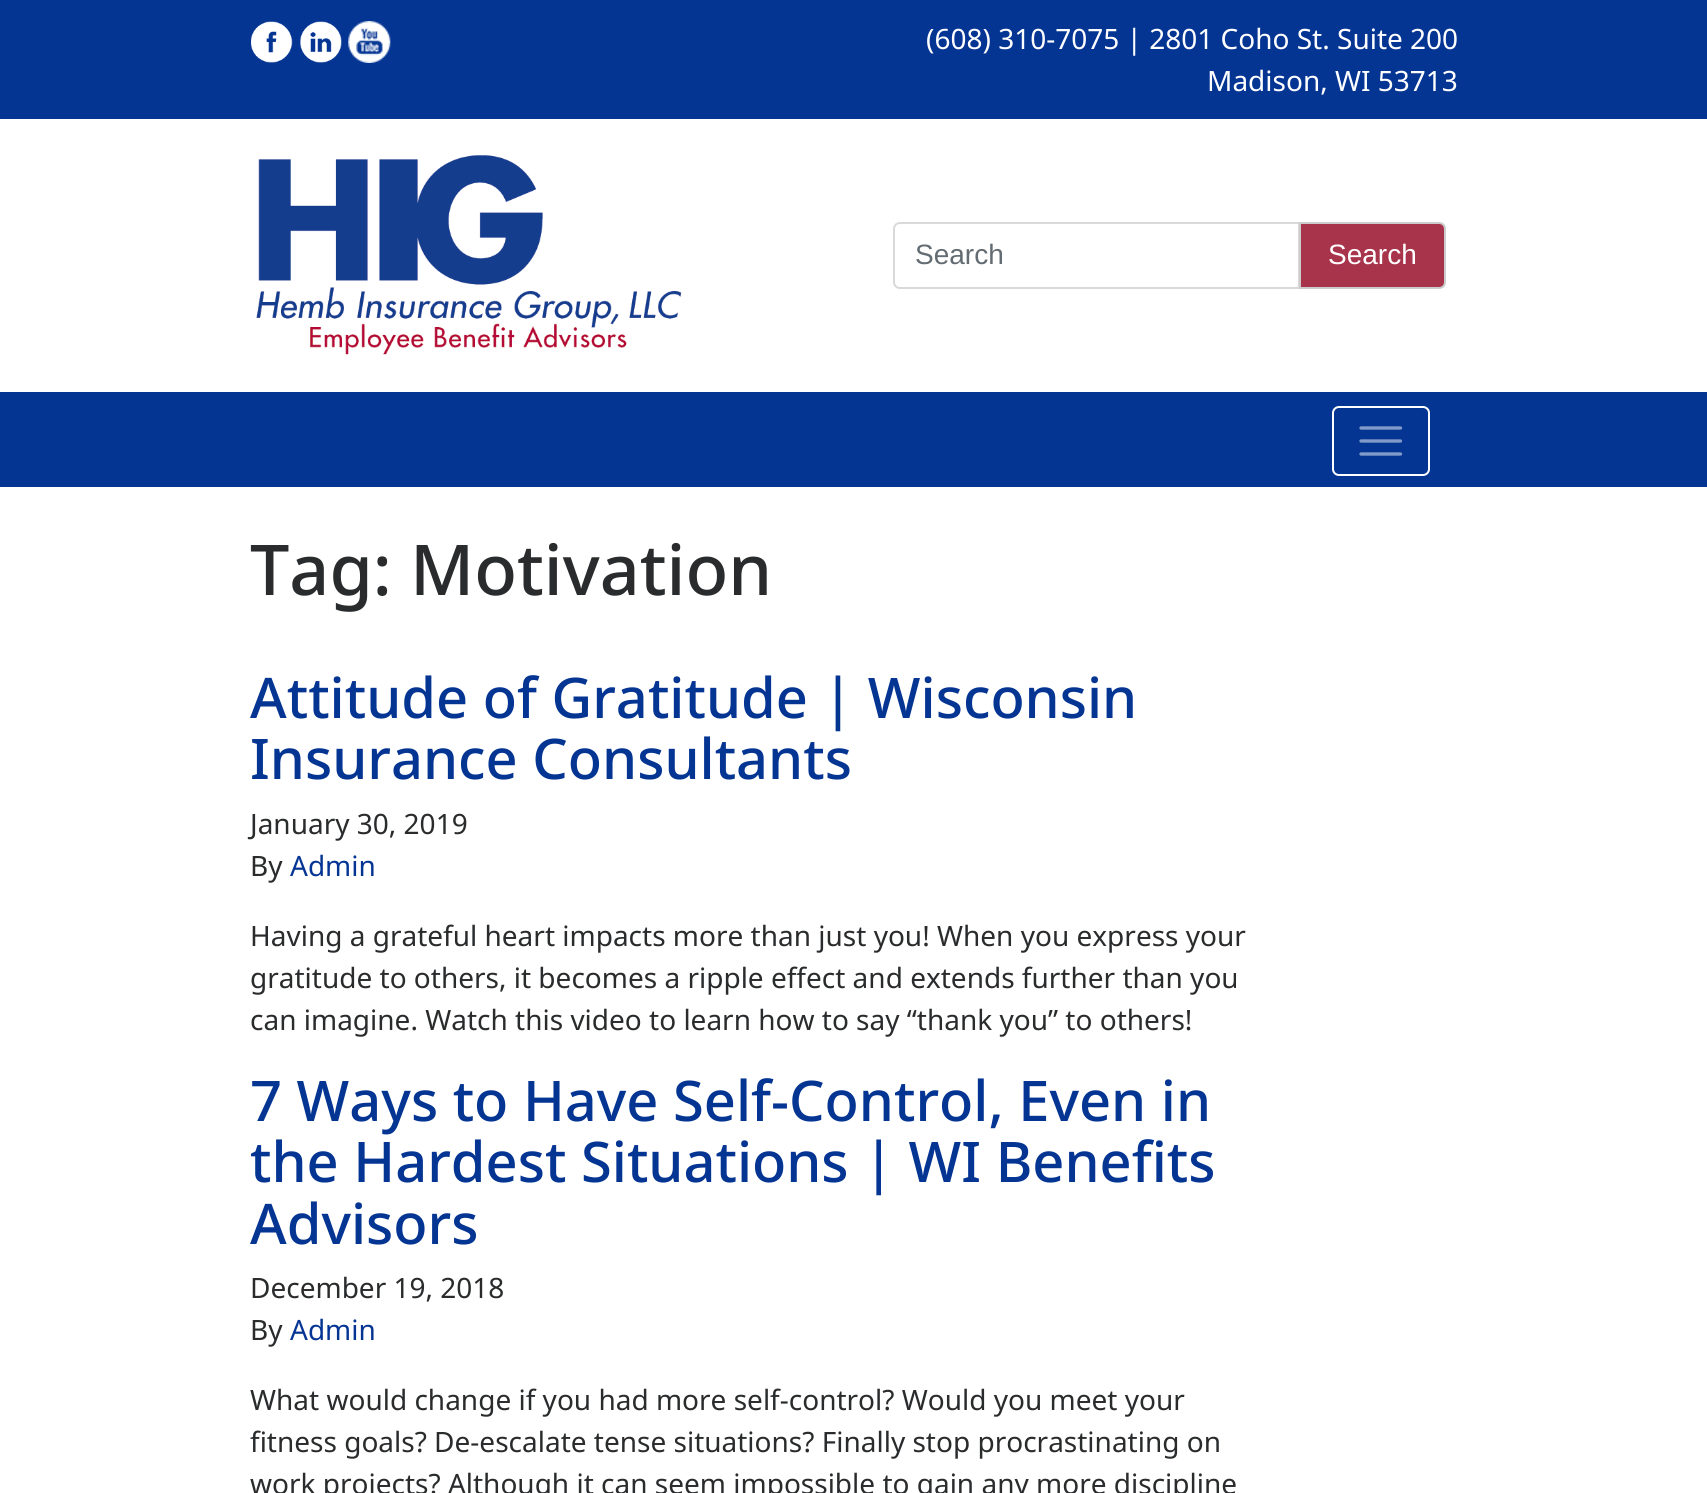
#include <cairo/cairo.h>
#include <math.h>
#include <stddef.h>


static void rounded_rect(cairo_t *cr, double x, double y, double w, double h, double r) {
  cairo_new_sub_path(cr);
  cairo_arc(cr, x + w - r, y + h - r, r, 0, M_PI / 2);
  cairo_arc(cr, x + r, y + h - r, r, M_PI / 2, M_PI);
  cairo_arc(cr, x + r, y + r, r, M_PI, 1.5 * M_PI);
  cairo_arc(cr, x + w - r, y + r, r, 1.5 * M_PI, 2 * M_PI);
  cairo_close_path(cr);
}

static void draw_image(cairo_t *cr, const char *path, double x, double y, double w, double h) {
  cairo_surface_t *image = cairo_image_surface_create_from_png(path);
  cairo_save(cr);
  cairo_set_source_surface(cr, image, x, y);
  cairo_rectangle(cr, x, y, w, h);
  cairo_fill(cr);
  cairo_restore(cr);
  cairo_surface_destroy(image);
}

static void draw(cairo_t *cr) {
  cairo_set_source_rgb(cr, 1, 1, 1);
  cairo_paint(cr);
  cairo_set_source_rgb(cr, 5 / 255.0, 53 / 255.0, 147 / 255.0);
  cairo_rectangle(cr, 0, 0, 1707, 119);
  cairo_fill(cr);
  draw_image(cr, "images/1.png", 251, 21, 42, 42);
  draw_image(cr, "images/2.png", 300, 21, 42, 42);
  draw_image(cr, "images/3.png", 348, 21, 43, 42);
  draw_image(cr, "images/4.png", 256, 155, 426, 200);
  cairo_new_path(cr);
  cairo_move_to(cr, 900, 223);
  cairo_line_to(cr, 1299, 223);
  cairo_line_to(cr, 1299, 288);
  cairo_line_to(cr, 900, 288);
  cairo_curve_to(cr, 896.5, 288, 894, 285.5, 894, 282);
  cairo_line_to(cr, 894, 229);
  cairo_curve_to(cr, 894, 225.5, 896.5, 223, 900, 223);
  cairo_close_path(cr);
  cairo_set_source_rgb(cr, 217 / 255.0, 217 / 255.0, 217 / 255.0);
  cairo_stroke(cr);
  cairo_set_source_rgb(cr, 168 / 255.0, 52 / 255.0, 76 / 255.0);
  cairo_new_path(cr);
  cairo_move_to(cr, 1300, 223);
  cairo_line_to(cr, 1439, 223);
  cairo_curve_to(cr, 1442.5, 223, 1445, 225.5, 1445, 229);
  cairo_line_to(cr, 1445, 282);
  cairo_curve_to(cr, 1445, 285.5, 1442.5, 288, 1439, 288);
  cairo_line_to(cr, 1300, 288);
  cairo_close_path(cr);
  cairo_fill_preserve(cr);
  cairo_set_source_rgb(cr, 204 / 255.0, 204 / 255.0, 204 / 255.0);
  cairo_stroke(cr);
  cairo_set_source_rgb(cr, 5 / 255.0, 53 / 255.0, 147 / 255.0);
  cairo_rectangle(cr, 0, 392, 1707, 95);
  cairo_fill(cr);
  rounded_rect(cr, 1333, 407, 96, 68, 6);
  cairo_set_source_rgb(cr, 1, 1, 1);
  cairo_stroke(cr);
  cairo_new_path(cr);
  cairo_move_to(cr, 1361, 428);
  cairo_line_to(cr, 1400.5, 428);
  cairo_move_to(cr, 1361, 441);
  cairo_line_to(cr, 1400.5, 441);
  cairo_move_to(cr, 1361, 454);
  cairo_line_to(cr, 1400.5, 454);
  cairo_set_source_rgb(cr, 130 / 255.0, 154 / 255.0, 201 / 255.0);
  cairo_set_line_width(cr, 3.3);
  cairo_set_line_cap(cr, CAIRO_LINE_CAP_ROUND);
  cairo_stroke(cr);
  cairo_select_font_face(cr, "Noto Sans", CAIRO_FONT_SLANT_NORMAL, CAIRO_FONT_WEIGHT_NORMAL);
  cairo_set_font_size(cr, 28);
  cairo_set_source_rgb(cr, 1, 1, 1);
  cairo_move_to(cr, 926, 49);
  cairo_show_text(cr, "(608) 310-7075 | 2801 Coho St. Suite 200");
  cairo_move_to(cr, 1207, 91);
  cairo_show_text(cr, "Madison, WI 53713");
  cairo_select_font_face(cr, "Liberation Sans", CAIRO_FONT_SLANT_NORMAL, CAIRO_FONT_WEIGHT_NORMAL);
  cairo_set_source_rgb(cr, 99 / 255.0, 108 / 255.0, 114 / 255.0);
  cairo_move_to(cr, 915, 264);
  cairo_show_text(cr, "Search");
  cairo_set_source_rgb(cr, 1, 1, 1);
  cairo_move_to(cr, 1328, 264);
  cairo_show_text(cr, "Search");
  cairo_select_font_face(cr, "Noto Sans Medium", CAIRO_FONT_SLANT_NORMAL, CAIRO_FONT_WEIGHT_NORMAL);
  cairo_set_font_size(cr, 70);
  cairo_set_source_rgb(cr, 41 / 255.0, 43 / 255.0, 44 / 255.0);
  cairo_move_to(cr, 250, 595);
  cairo_show_text(cr, "Tag: Motivation");
  cairo_set_font_size(cr, 56);
  cairo_set_source_rgb(cr, 5 / 255.0, 53 / 255.0, 147 / 255.0);
  cairo_move_to(cr, 250, 718);
  cairo_show_text(cr, "Attitude of Gratitude | Wisconsin");
  cairo_move_to(cr, 250, 779);
  cairo_show_text(cr, "Insurance Consultants");
  cairo_select_font_face(cr, "Noto Sans", CAIRO_FONT_SLANT_NORMAL, CAIRO_FONT_WEIGHT_NORMAL);
  cairo_set_font_size(cr, 28);
  cairo_set_source_rgb(cr, 41 / 255.0, 43 / 255.0, 44 / 255.0);
  cairo_move_to(cr, 250, 834);
  cairo_show_text(cr, "January 30, 2019");
  cairo_move_to(cr, 250, 876);
  cairo_show_text(cr, "By");
  cairo_set_source_rgb(cr, 5 / 255.0, 53 / 255.0, 147 / 255.0);
  cairo_move_to(cr, 290, 876);
  cairo_show_text(cr, "Admin");
  cairo_set_source_rgb(cr, 41 / 255.0, 43 / 255.0, 44 / 255.0);
  cairo_move_to(cr, 250, 946);
  cairo_show_text(cr, "Having a grateful heart impacts more than just you! When you express your");
  cairo_move_to(cr, 250, 988);
  cairo_show_text(cr, "gratitude to others, it becomes a ripple effect and extends further than you");
  cairo_move_to(cr, 250, 1030);
  cairo_show_text(cr, "can imagine. Watch this video to learn how to say “thank you” to others!");
  cairo_select_font_face(cr, "Noto Sans Medium", CAIRO_FONT_SLANT_NORMAL, CAIRO_FONT_WEIGHT_NORMAL);
  cairo_set_font_size(cr, 56);
  cairo_set_source_rgb(cr, 5 / 255.0, 53 / 255.0, 147 / 255.0);
  cairo_move_to(cr, 250, 1121);
  cairo_show_text(cr, "7 Ways to Have Self-Control, Even in");
  cairo_move_to(cr, 250, 1182);
  cairo_show_text(cr, "the Hardest Situations | WI Benefits");
  cairo_move_to(cr, 250, 1244);
  cairo_show_text(cr, "Advisors");
  cairo_select_font_face(cr, "Noto Sans", CAIRO_FONT_SLANT_NORMAL, CAIRO_FONT_WEIGHT_NORMAL);
  cairo_set_font_size(cr, 28);
  cairo_set_source_rgb(cr, 41 / 255.0, 43 / 255.0, 44 / 255.0);
  cairo_move_to(cr, 250, 1298);
  cairo_show_text(cr, "December 19, 2018");
  cairo_move_to(cr, 250, 1340);
  cairo_show_text(cr, "By");
  cairo_set_source_rgb(cr, 5 / 255.0, 53 / 255.0, 147 / 255.0);
  cairo_move_to(cr, 290, 1340);
  cairo_show_text(cr, "Admin");
  cairo_set_source_rgb(cr, 41 / 255.0, 43 / 255.0, 44 / 255.0);
  cairo_move_to(cr, 250, 1410);
  cairo_show_text(cr, "What would change if you had more self-control? Would you meet your");
  cairo_move_to(cr, 250, 1452);
  cairo_show_text(cr, "fitness goals? De-escalate tense situations? Finally stop procrastinating on");
  cairo_move_to(cr, 250, 1494);
  cairo_show_text(cr, "work projects? Although it can seem impossible to gain any more discipline");
}

int main(void) {
  cairo_surface_t *surface = cairo_image_surface_create(CAIRO_FORMAT_RGB24, 1707, 1493);
  cairo_t *cr = cairo_create(surface);
  cairo_font_options_t *options = cairo_font_options_create();
  cairo_font_options_set_hint_metrics(options, CAIRO_HINT_METRICS_OFF);
  cairo_font_options_set_hint_style(options, CAIRO_HINT_STYLE_NONE);
  cairo_set_font_options(cr, options);
  cairo_set_miter_limit(cr, 4);
  draw(cr);
  cairo_surface_write_to_png(surface, "out.png");
  cairo_font_options_destroy(options);
  cairo_destroy(cr);
  cairo_surface_destroy(surface);
  return 0;
}
